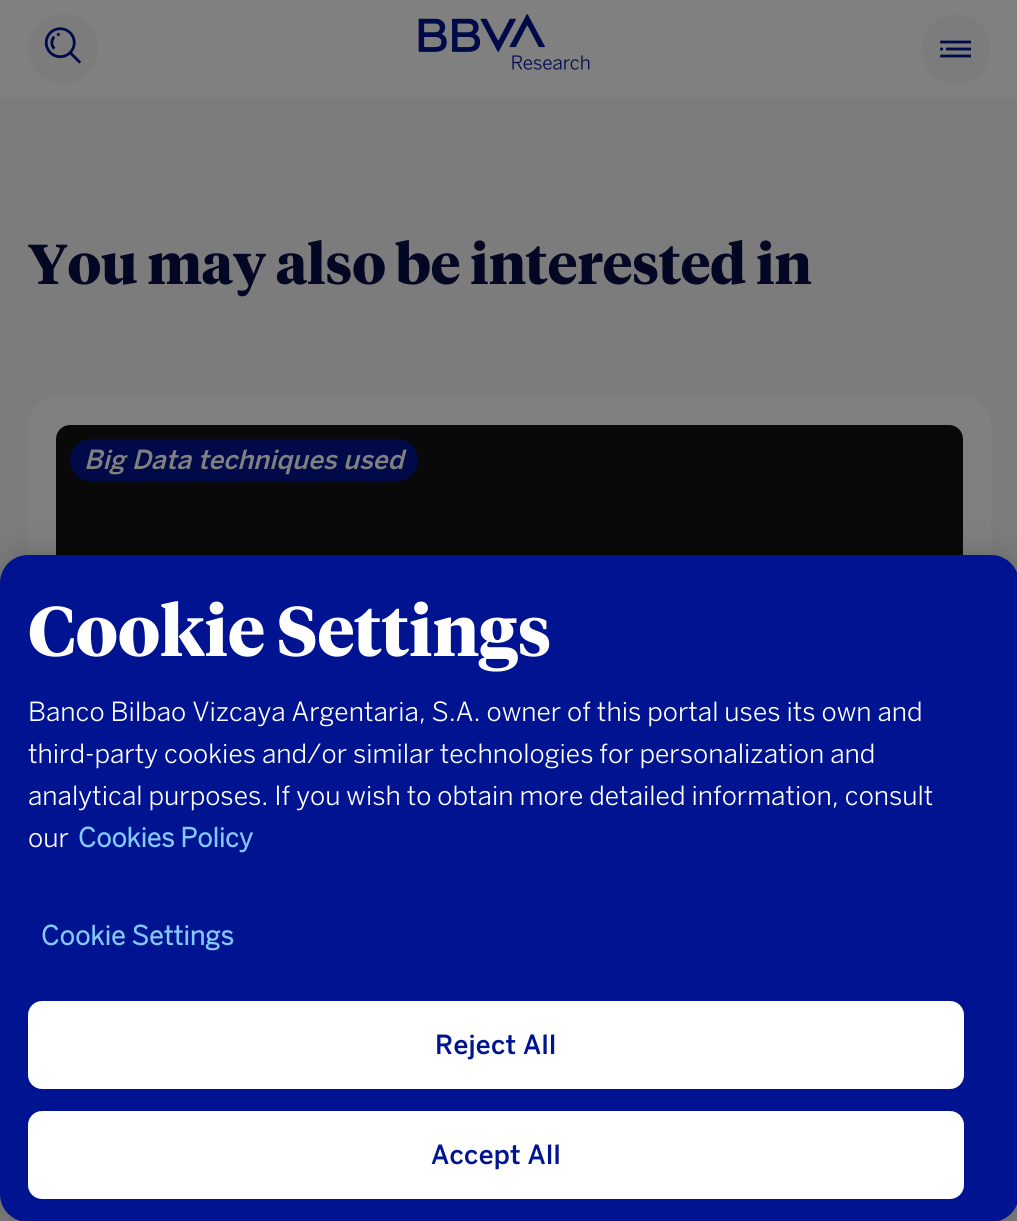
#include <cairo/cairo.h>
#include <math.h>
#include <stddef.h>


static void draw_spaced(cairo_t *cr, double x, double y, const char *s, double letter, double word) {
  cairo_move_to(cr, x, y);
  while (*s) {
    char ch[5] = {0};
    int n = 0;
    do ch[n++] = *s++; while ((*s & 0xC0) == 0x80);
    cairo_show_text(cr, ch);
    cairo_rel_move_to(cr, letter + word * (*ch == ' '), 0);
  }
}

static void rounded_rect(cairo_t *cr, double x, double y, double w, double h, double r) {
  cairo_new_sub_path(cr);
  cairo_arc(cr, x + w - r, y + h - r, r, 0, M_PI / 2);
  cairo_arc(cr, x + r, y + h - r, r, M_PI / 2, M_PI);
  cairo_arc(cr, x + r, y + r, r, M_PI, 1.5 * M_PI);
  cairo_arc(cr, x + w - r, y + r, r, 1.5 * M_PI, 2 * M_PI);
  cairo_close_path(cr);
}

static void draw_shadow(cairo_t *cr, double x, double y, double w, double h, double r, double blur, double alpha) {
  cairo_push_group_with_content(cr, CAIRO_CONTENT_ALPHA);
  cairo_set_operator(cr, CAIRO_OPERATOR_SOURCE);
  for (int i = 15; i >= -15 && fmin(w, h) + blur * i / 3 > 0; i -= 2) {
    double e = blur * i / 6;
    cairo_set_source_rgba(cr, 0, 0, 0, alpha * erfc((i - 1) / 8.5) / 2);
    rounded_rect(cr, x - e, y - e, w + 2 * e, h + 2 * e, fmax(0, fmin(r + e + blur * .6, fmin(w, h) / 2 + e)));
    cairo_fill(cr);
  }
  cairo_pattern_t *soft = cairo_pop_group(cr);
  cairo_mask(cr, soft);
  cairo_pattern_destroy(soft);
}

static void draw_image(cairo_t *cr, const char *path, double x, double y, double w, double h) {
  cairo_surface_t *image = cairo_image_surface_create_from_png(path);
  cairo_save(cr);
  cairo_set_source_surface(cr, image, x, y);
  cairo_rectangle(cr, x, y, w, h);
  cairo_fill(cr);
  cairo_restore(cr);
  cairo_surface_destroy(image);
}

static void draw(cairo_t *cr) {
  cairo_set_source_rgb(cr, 124 / 255.0, 124 / 255.0, 124 / 255.0);
  cairo_paint(cr);
  cairo_set_source_rgb(cr, 128 / 255.0, 128 / 255.0, 128 / 255.0);
  cairo_rectangle(cr, 0, 0, 1017, 98);
  cairo_fill(cr);
  cairo_set_source_rgb(cr, 124 / 255.0, 124 / 255.0, 124 / 255.0);
  cairo_arc(cr, 63, 49, 35, 0, 2 * M_PI);
  cairo_fill(cr);
  draw_image(cr, "images/1.png", 44, 27, 38, 37);
  draw_image(cr, "images/2.png", 418, 14, 172, 56);
  cairo_arc(cr, 956, 49, 35, 0, 2 * M_PI);
  cairo_fill(cr);
  draw_image(cr, "images/3.png", 940, 40, 31, 18);
  cairo_set_source_rgb(cr, 128 / 255.0, 128 / 255.0, 128 / 255.0);
  rounded_rect(cr, 28, 397, 963, 784, 28);
  cairo_fill(cr);
  cairo_set_source_rgb(cr, 9 / 255.0, 9 / 255.0, 9 / 255.0);
  rounded_rect(cr, 56, 425, 907, 364, 14);
  cairo_fill(cr);
  cairo_set_source_rgb(cr, 0, 10 / 255.0, 73 / 255.0);
  rounded_rect(cr, 70, 439, 348, 42, 21);
  cairo_fill(cr);
  cairo_set_source_rgb(cr, 0, 0, 0);
  draw_shadow(cr, 0, 555, 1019, 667, 28, 16, 0.2);
  cairo_set_source_rgb(cr, 0, 19 / 255.0, 145 / 255.0);
  rounded_rect(cr, 0, 555, 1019, 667, 28);
  cairo_fill(cr);
  cairo_set_source_rgb(cr, 1, 1, 1);
  rounded_rect(cr, 29, 1002, 934, 86, 13);
  cairo_fill_preserve(cr);
  cairo_stroke(cr);
  rounded_rect(cr, 29, 1112, 934, 86, 13);
  cairo_fill_preserve(cr);
  cairo_stroke(cr);
  cairo_select_font_face(cr, "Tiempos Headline", CAIRO_FONT_SLANT_NORMAL, CAIRO_FONT_WEIGHT_BOLD);
  cairo_set_font_size(cr, 56);
  cairo_set_source_rgb(cr, 4 / 255.0, 7 / 255.0, 35 / 255.0);
  cairo_move_to(cr, 28, 284);
  cairo_show_text(cr, "You may also be interested in");
  cairo_select_font_face(cr, "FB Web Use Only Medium", CAIRO_FONT_SLANT_ITALIC, CAIRO_FONT_WEIGHT_NORMAL);
  cairo_set_font_size(cr, 26.25);
  cairo_set_source_rgb(cr, 128 / 255.0, 128 / 255.0, 128 / 255.0);
  cairo_move_to(cr, 84, 469);
  cairo_show_text(cr, "Big Data techniques used");
  cairo_select_font_face(cr, "Tiempos Headline", CAIRO_FONT_SLANT_NORMAL, CAIRO_FONT_WEIGHT_BOLD);
  cairo_set_font_size(cr, 70);
  cairo_set_source_rgb(cr, 1, 1, 1);
  cairo_move_to(cr, 28, 656);
  cairo_show_text(cr, "Cookie Settings");
  cairo_select_font_face(cr, "FB Web Use Only Light", CAIRO_FONT_SLANT_NORMAL, CAIRO_FONT_WEIGHT_NORMAL);
  cairo_set_font_size(cr, 26.25);
  cairo_move_to(cr, 28, 721);
  cairo_show_text(cr, "Banco Bilbao Vizcaya Argentaria, S.A. owner of this portal uses its own and");
  cairo_move_to(cr, 28, 763);
  cairo_show_text(cr, "third-party cookies and/or similar technologies for personalization and");
  cairo_move_to(cr, 28, 805);
  cairo_show_text(cr, "analytical purposes. If you wish to obtain more detailed information, consult");
  cairo_move_to(cr, 28, 847);
  cairo_show_text(cr, "our");
  cairo_select_font_face(cr, "FB Web Use Only", CAIRO_FONT_SLANT_NORMAL, CAIRO_FONT_WEIGHT_BOLD);
  cairo_set_source_rgb(cr, 133 / 255.0, 200 / 255.0, 1);
  cairo_move_to(cr, 78, 847);
  cairo_show_text(cr, "Cookies Policy");
  draw_spaced(cr, 41, 945, "Cookie Settings", 0.25, 0);
  cairo_select_font_face(cr, "FB Web Use Only Medium", CAIRO_FONT_SLANT_NORMAL, CAIRO_FONT_WEIGHT_NORMAL);
  cairo_set_source_rgb(cr, 0, 19 / 255.0, 145 / 255.0);
  draw_spaced(cr, 435, 1054, "Reject All", 0.25, 0);
  draw_spaced(cr, 431, 1164, "Accept All", 0.25, 0);
}

int main(void) {
  cairo_surface_t *surface = cairo_image_surface_create(CAIRO_FORMAT_RGB24, 1017, 1221);
  cairo_t *cr = cairo_create(surface);
  cairo_font_options_t *options = cairo_font_options_create();
  cairo_font_options_set_hint_metrics(options, CAIRO_HINT_METRICS_OFF);
  cairo_font_options_set_hint_style(options, CAIRO_HINT_STYLE_NONE);
  cairo_set_font_options(cr, options);
  cairo_set_miter_limit(cr, 4);
  draw(cr);
  cairo_surface_write_to_png(surface, "out.png");
  cairo_font_options_destroy(options);
  cairo_destroy(cr);
  cairo_surface_destroy(surface);
  return 0;
}
